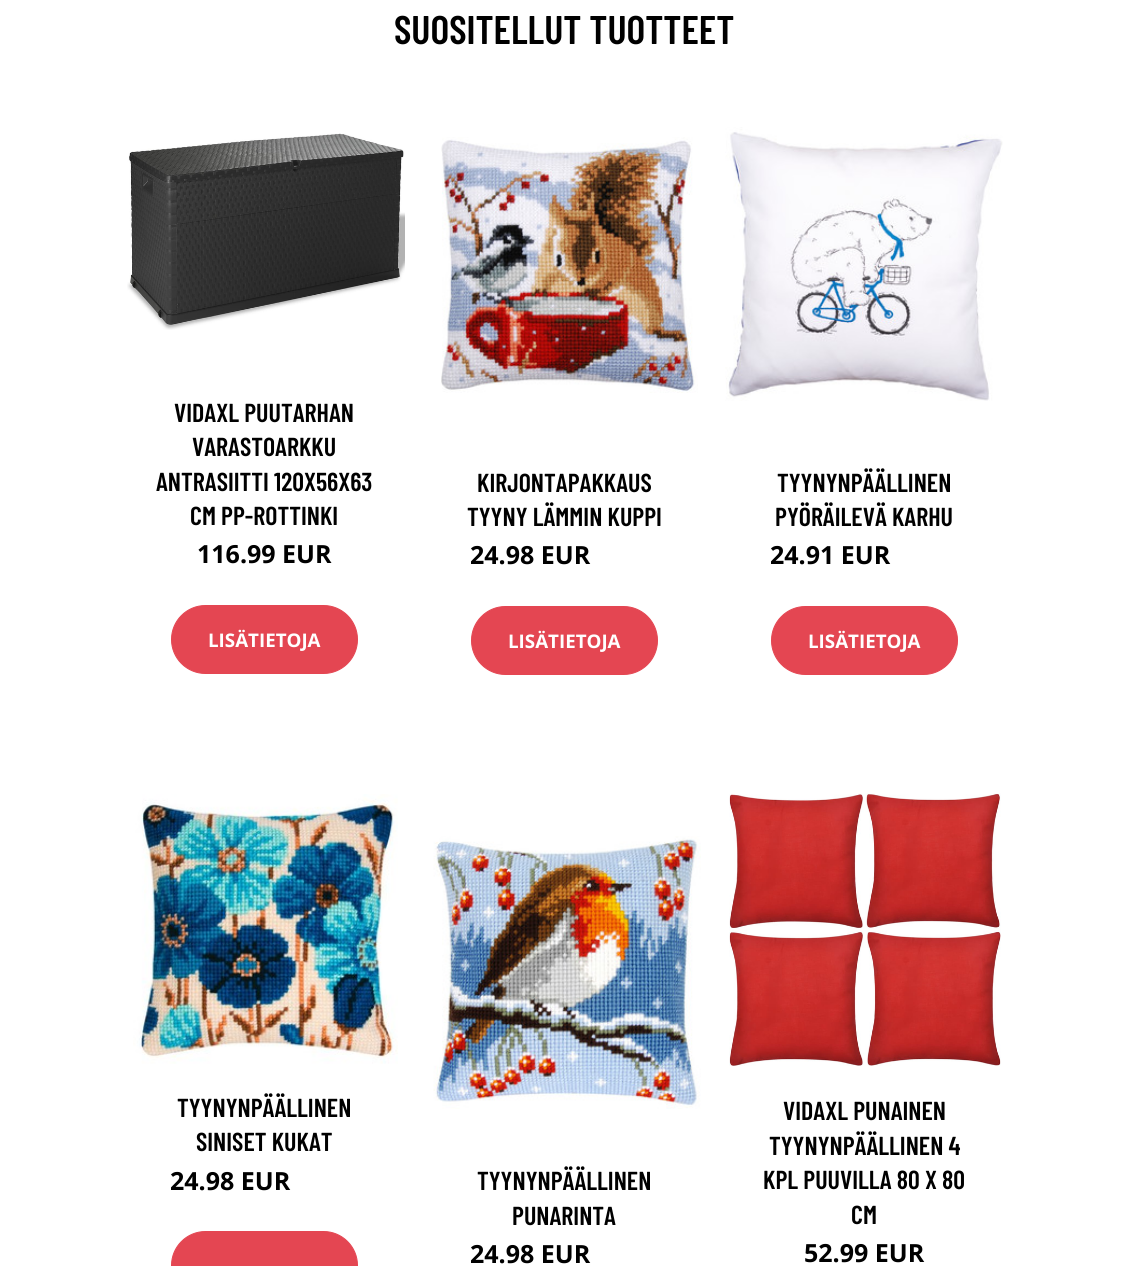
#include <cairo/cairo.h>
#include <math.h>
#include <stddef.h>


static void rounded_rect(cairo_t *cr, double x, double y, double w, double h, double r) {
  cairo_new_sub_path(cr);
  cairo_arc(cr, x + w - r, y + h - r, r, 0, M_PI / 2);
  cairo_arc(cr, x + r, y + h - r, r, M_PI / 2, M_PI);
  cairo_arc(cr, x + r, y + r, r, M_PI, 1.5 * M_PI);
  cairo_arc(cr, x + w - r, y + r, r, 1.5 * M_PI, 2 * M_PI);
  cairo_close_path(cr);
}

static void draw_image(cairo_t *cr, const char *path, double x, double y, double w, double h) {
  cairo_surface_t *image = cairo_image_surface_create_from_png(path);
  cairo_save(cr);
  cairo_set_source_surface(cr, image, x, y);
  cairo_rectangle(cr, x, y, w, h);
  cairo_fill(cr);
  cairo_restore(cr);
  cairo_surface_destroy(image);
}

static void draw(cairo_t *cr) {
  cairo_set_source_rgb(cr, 1, 1, 1);
  cairo_paint(cr);
  draw_image(cr, "images/1.png", 127, 133, 278, 197);
  cairo_set_source_rgb(cr, 228 / 255.0, 70 / 255.0, 82 / 255.0);
  rounded_rect(cr, 171.5, 605.5, 186, 68, 34);
  cairo_fill_preserve(cr);
  cairo_set_line_width(cr, 1);
  cairo_stroke(cr);
  draw_image(cr, "images/2.png", 441, 137, 257, 256);
  rounded_rect(cr, 471.5, 606.5, 186, 68, 34);
  cairo_fill_preserve(cr);
  cairo_stroke(cr);
  draw_image(cr, "images/3.png", 725, 127, 278, 274);
  rounded_rect(cr, 771.5, 606.5, 186, 68, 34);
  cairo_fill_preserve(cr);
  cairo_stroke(cr);
  draw_image(cr, "images/4.png", 133, 794, 265, 270);
  rounded_rect(cr, 171.5, 1231.5, 186, 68, 34);
  cairo_fill_preserve(cr);
  cairo_stroke(cr);
  draw_image(cr, "images/5.png", 433, 836, 268, 273);
  draw_image(cr, "images/6.png", 729, 793, 272, 273);
  cairo_select_font_face(cr, "Barlow Condensed SemiBold", CAIRO_FONT_SLANT_NORMAL, CAIRO_FONT_WEIGHT_NORMAL);
  cairo_set_font_size(cr, 40);
  cairo_set_source_rgb(cr, 0, 0, 0);
  cairo_move_to(cr, 394, 44);
  cairo_show_text(cr, "SUOSITELLUT TUOTTEET");
  cairo_set_font_size(cr, 26);
  cairo_move_to(cr, 174, 422);
  cairo_show_text(cr, "VIDAXL PUUTARHAN");
  cairo_move_to(cr, 192, 456);
  cairo_show_text(cr, "VARASTOARKKU");
  cairo_move_to(cr, 156, 491);
  cairo_show_text(cr, "ANTRASIITTI 120X56X63");
  cairo_move_to(cr, 190, 525);
  cairo_show_text(cr, "CM PP-ROTTINKI");
  cairo_select_font_face(cr, "Open Sans", CAIRO_FONT_SLANT_NORMAL, CAIRO_FONT_WEIGHT_BOLD);
  cairo_set_font_size(cr, 25);
  cairo_move_to(cr, 197, 563);
  cairo_show_text(cr, "116.99 EUR");
  cairo_set_font_size(cr, 18.75);
  cairo_set_source_rgb(cr, 1, 1, 1);
  cairo_move_to(cr, 208, 647);
  cairo_show_text(cr, "LISÄTIETOJA");
  cairo_select_font_face(cr, "Barlow Condensed SemiBold", CAIRO_FONT_SLANT_NORMAL, CAIRO_FONT_WEIGHT_NORMAL);
  cairo_set_font_size(cr, 26);
  cairo_set_source_rgb(cr, 0, 0, 0);
  cairo_move_to(cr, 477, 492);
  cairo_show_text(cr, "KIRJONTAPAKKAUS");
  cairo_move_to(cr, 467, 526);
  cairo_show_text(cr, "TYYNY LÄMMIN KUPPI");
  cairo_select_font_face(cr, "Open Sans", CAIRO_FONT_SLANT_NORMAL, CAIRO_FONT_WEIGHT_BOLD);
  cairo_set_font_size(cr, 25);
  cairo_move_to(cr, 470, 564);
  cairo_show_text(cr, "24.98 EUR");
  cairo_set_font_size(cr, 18.75);
  cairo_set_source_rgb(cr, 1, 1, 1);
  cairo_move_to(cr, 508, 648);
  cairo_show_text(cr, "LISÄTIETOJA");
  cairo_select_font_face(cr, "Barlow Condensed SemiBold", CAIRO_FONT_SLANT_NORMAL, CAIRO_FONT_WEIGHT_NORMAL);
  cairo_set_font_size(cr, 26);
  cairo_set_source_rgb(cr, 0, 0, 0);
  cairo_move_to(cr, 777, 492);
  cairo_show_text(cr, "TYYNYNPÄÄLLINEN");
  cairo_move_to(cr, 775, 526);
  cairo_show_text(cr, "PYÖRÄILEVÄ KARHU");
  cairo_select_font_face(cr, "Open Sans", CAIRO_FONT_SLANT_NORMAL, CAIRO_FONT_WEIGHT_BOLD);
  cairo_set_font_size(cr, 25);
  cairo_move_to(cr, 770, 564);
  cairo_show_text(cr, "24.91 EUR");
  cairo_set_font_size(cr, 18.75);
  cairo_set_source_rgb(cr, 1, 1, 1);
  cairo_move_to(cr, 808, 648);
  cairo_show_text(cr, "LISÄTIETOJA");
  cairo_select_font_face(cr, "Barlow Condensed SemiBold", CAIRO_FONT_SLANT_NORMAL, CAIRO_FONT_WEIGHT_NORMAL);
  cairo_set_font_size(cr, 26);
  cairo_set_source_rgb(cr, 0, 0, 0);
  cairo_move_to(cr, 177, 1117);
  cairo_show_text(cr, "TYYNYNPÄÄLLINEN");
  cairo_move_to(cr, 196, 1151);
  cairo_show_text(cr, "SINISET KUKAT");
  cairo_select_font_face(cr, "Open Sans", CAIRO_FONT_SLANT_NORMAL, CAIRO_FONT_WEIGHT_BOLD);
  cairo_set_font_size(cr, 25);
  cairo_move_to(cr, 170, 1190);
  cairo_show_text(cr, "24.98 EUR");
  cairo_select_font_face(cr, "Barlow Condensed SemiBold", CAIRO_FONT_SLANT_NORMAL, CAIRO_FONT_WEIGHT_NORMAL);
  cairo_set_font_size(cr, 26);
  cairo_move_to(cr, 477, 1190);
  cairo_show_text(cr, "TYYNYNPÄÄLLINEN");
  cairo_move_to(cr, 512, 1225);
  cairo_show_text(cr, "PUNARINTA");
  cairo_select_font_face(cr, "Open Sans", CAIRO_FONT_SLANT_NORMAL, CAIRO_FONT_WEIGHT_BOLD);
  cairo_set_font_size(cr, 25);
  cairo_move_to(cr, 470, 1263);
  cairo_show_text(cr, "24.98 EUR");
  cairo_select_font_face(cr, "Barlow Condensed SemiBold", CAIRO_FONT_SLANT_NORMAL, CAIRO_FONT_WEIGHT_NORMAL);
  cairo_set_font_size(cr, 26);
  cairo_move_to(cr, 783, 1120);
  cairo_show_text(cr, "VIDAXL PUNAINEN");
  cairo_move_to(cr, 769, 1155);
  cairo_show_text(cr, "TYYNYNPÄÄLLINEN 4");
  cairo_move_to(cr, 763, 1189);
  cairo_show_text(cr, "KPL PUUVILLA 80 X 80");
  cairo_move_to(cr, 851, 1224);
  cairo_show_text(cr, "CM");
  cairo_select_font_face(cr, "Open Sans", CAIRO_FONT_SLANT_NORMAL, CAIRO_FONT_WEIGHT_BOLD);
  cairo_set_font_size(cr, 25);
  cairo_move_to(cr, 804, 1262);
  cairo_show_text(cr, "52.99 EUR");
}

int main(void) {
  cairo_surface_t *surface = cairo_image_surface_create(CAIRO_FORMAT_RGB24, 1128, 1266);
  cairo_t *cr = cairo_create(surface);
  cairo_font_options_t *options = cairo_font_options_create();
  cairo_font_options_set_hint_metrics(options, CAIRO_HINT_METRICS_OFF);
  cairo_font_options_set_hint_style(options, CAIRO_HINT_STYLE_NONE);
  cairo_set_font_options(cr, options);
  cairo_set_miter_limit(cr, 4);
  draw(cr);
  cairo_surface_write_to_png(surface, "out.png");
  cairo_font_options_destroy(options);
  cairo_destroy(cr);
  cairo_surface_destroy(surface);
  return 0;
}
